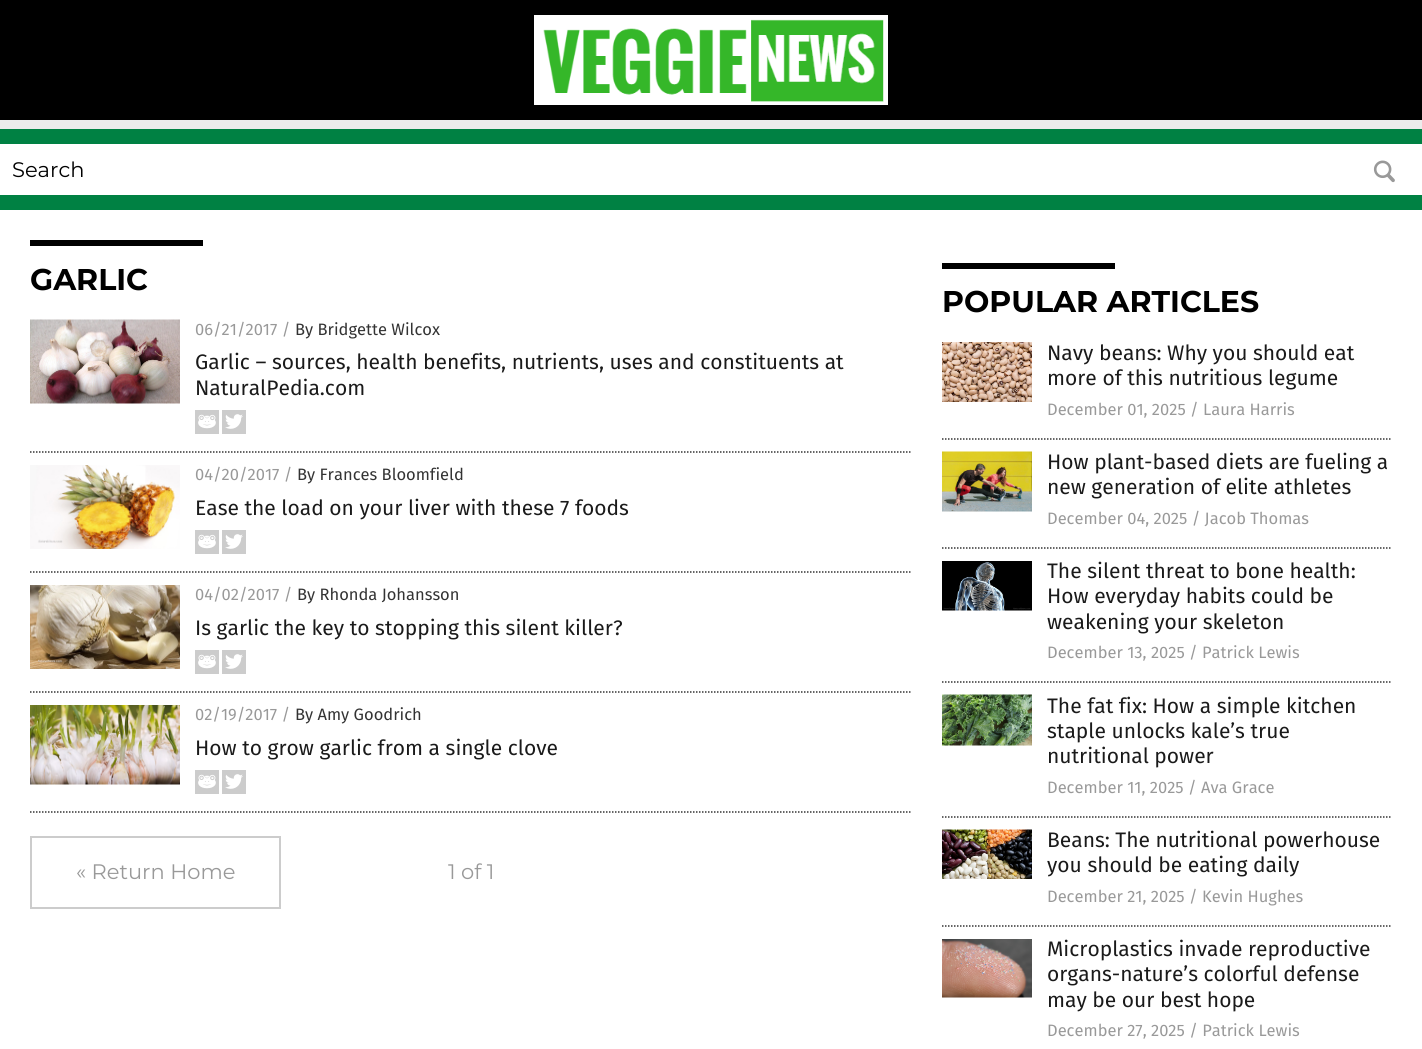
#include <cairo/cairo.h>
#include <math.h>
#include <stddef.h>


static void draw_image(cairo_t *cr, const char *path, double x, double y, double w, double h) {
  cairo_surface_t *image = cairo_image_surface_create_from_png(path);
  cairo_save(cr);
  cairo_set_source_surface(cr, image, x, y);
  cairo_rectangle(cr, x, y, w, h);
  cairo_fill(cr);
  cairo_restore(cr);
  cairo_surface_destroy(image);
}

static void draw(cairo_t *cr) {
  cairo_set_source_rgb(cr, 0, 129 / 255.0, 67 / 255.0);
  cairo_paint(cr);
  cairo_set_source_rgb(cr, 0, 0, 0);
  cairo_rectangle(cr, 0, 0, 1422, 120);
  cairo_fill(cr);
  draw_image(cr, "images/1.png", 534, 15, 354, 90);
  cairo_set_source_rgb(cr, 236 / 255.0, 236 / 255.0, 236 / 255.0);
  cairo_rectangle(cr, 0, 120, 1422, 9);
  cairo_fill(cr);
  cairo_set_source_rgb(cr, 1, 1, 1);
  cairo_rectangle(cr, 0, 144, 1422, 51);
  cairo_fill(cr);
  draw_image(cr, "images/2.png", 1373, 160, 22, 23);
  cairo_rectangle(cr, 0, 210, 1422, 839);
  cairo_fill(cr);
  cairo_set_source_rgb(cr, 0, 0, 0);
  cairo_rectangle(cr, 30, 240, 173, 6);
  cairo_fill(cr);
  cairo_new_path(cr);
  cairo_move_to(cr, 30, 452);
  cairo_line_to(cr, 912, 452);
  cairo_set_source_rgb(cr, 52 / 255.0, 52 / 255.0, 52 / 255.0);
  cairo_set_line_width(cr, 1.5);
  cairo_set_dash(cr, (double[]){1.5, 1.5}, 2, 0);
  cairo_stroke(cr);
  draw_image(cr, "images/3.png", 30, 319, 150, 85);
  draw_image(cr, "images/4.png", 195, 410, 24, 24);
  draw_image(cr, "images/5.png", 222, 410, 24, 24);
  cairo_new_path(cr);
  cairo_move_to(cr, 30, 572);
  cairo_line_to(cr, 912, 572);
  cairo_stroke(cr);
  draw_image(cr, "images/6.png", 30, 465, 150, 84);
  draw_image(cr, "images/4.png", 195, 530, 24, 24);
  draw_image(cr, "images/5.png", 222, 530, 24, 24);
  cairo_new_path(cr);
  cairo_move_to(cr, 30, 692);
  cairo_line_to(cr, 912, 692);
  cairo_stroke(cr);
  draw_image(cr, "images/7.png", 30, 585, 150, 84);
  draw_image(cr, "images/4.png", 195, 650, 24, 24);
  draw_image(cr, "images/5.png", 222, 650, 24, 24);
  cairo_new_path(cr);
  cairo_move_to(cr, 30, 812);
  cairo_line_to(cr, 912, 812);
  cairo_stroke(cr);
  draw_image(cr, "images/8.png", 30, 705, 150, 80);
  draw_image(cr, "images/4.png", 195, 770, 24, 24);
  draw_image(cr, "images/5.png", 222, 770, 24, 24);
  cairo_rectangle(cr, 31, 837, 249, 71);
  cairo_set_source_rgb(cr, 204 / 255.0, 204 / 255.0, 204 / 255.0);
  cairo_set_line_width(cr, 2);
  cairo_set_dash(cr, NULL, 0, 0);
  cairo_stroke(cr);
  cairo_set_source_rgb(cr, 0, 0, 0);
  cairo_rectangle(cr, 942, 263, 173, 6);
  cairo_fill(cr);
  cairo_new_path(cr);
  cairo_move_to(cr, 942, 439);
  cairo_line_to(cr, 1392, 439);
  cairo_set_source_rgb(cr, 52 / 255.0, 52 / 255.0, 52 / 255.0);
  cairo_set_line_width(cr, 1.5);
  cairo_set_dash(cr, (double[]){1.5, 1.5}, 2, 0);
  cairo_stroke(cr);
  draw_image(cr, "images/9.png", 942, 342, 90, 60);
  cairo_new_path(cr);
  cairo_move_to(cr, 942, 548);
  cairo_line_to(cr, 1392, 548);
  cairo_stroke(cr);
  draw_image(cr, "images/10.png", 942, 451, 90, 61);
  cairo_new_path(cr);
  cairo_move_to(cr, 942, 682);
  cairo_line_to(cr, 1392, 682);
  cairo_stroke(cr);
  draw_image(cr, "images/11.png", 942, 561, 90, 50);
  cairo_new_path(cr);
  cairo_move_to(cr, 942, 817);
  cairo_line_to(cr, 1392, 817);
  cairo_stroke(cr);
  draw_image(cr, "images/12.png", 942, 694, 90, 52);
  cairo_new_path(cr);
  cairo_move_to(cr, 942, 926);
  cairo_line_to(cr, 1392, 926);
  cairo_stroke(cr);
  draw_image(cr, "images/13.png", 942, 829, 90, 50);
  draw_image(cr, "images/14.png", 942, 939, 90, 59);
  cairo_select_font_face(cr, "Montserrat", CAIRO_FONT_SLANT_NORMAL, CAIRO_FONT_WEIGHT_NORMAL);
  cairo_set_font_size(cr, 21);
  cairo_set_source_rgb(cr, 0, 0, 0);
  cairo_move_to(cr, 12, 177);
  cairo_show_text(cr, "Search");
  cairo_select_font_face(cr, "Montserrat", CAIRO_FONT_SLANT_NORMAL, CAIRO_FONT_WEIGHT_BOLD);
  cairo_set_font_size(cr, 30);
  cairo_move_to(cr, 30, 290);
  cairo_show_text(cr, "GARLIC");
  cairo_select_font_face(cr, "Fira Sans", CAIRO_FONT_SLANT_NORMAL, CAIRO_FONT_WEIGHT_NORMAL);
  cairo_set_font_size(cr, 16.5);
  cairo_set_source_rgb(cr, 153 / 255.0, 153 / 255.0, 153 / 255.0);
  cairo_move_to(cr, 195, 335);
  cairo_show_text(cr, "06/21/2017 /");
  cairo_set_source_rgb(cr, 51 / 255.0, 51 / 255.0, 51 / 255.0);
  cairo_move_to(cr, 295, 335);
  cairo_show_text(cr, "By Bridgette Wilcox");
  cairo_set_font_size(cr, 21);
  cairo_set_source_rgb(cr, 26 / 255.0, 26 / 255.0, 26 / 255.0);
  cairo_move_to(cr, 195, 369);
  cairo_show_text(cr, "Garlic – sources, health benefits, nutrients, uses and constituents at");
  cairo_move_to(cr, 195, 395);
  cairo_show_text(cr, "NaturalPedia.com");
  cairo_set_font_size(cr, 16.5);
  cairo_set_source_rgb(cr, 153 / 255.0, 153 / 255.0, 153 / 255.0);
  cairo_move_to(cr, 195, 480);
  cairo_show_text(cr, "04/20/2017 /");
  cairo_set_source_rgb(cr, 51 / 255.0, 51 / 255.0, 51 / 255.0);
  cairo_move_to(cr, 297, 480);
  cairo_show_text(cr, "By Frances Bloomfield");
  cairo_set_font_size(cr, 21);
  cairo_set_source_rgb(cr, 26 / 255.0, 26 / 255.0, 26 / 255.0);
  cairo_move_to(cr, 195, 515);
  cairo_show_text(cr, "Ease the load on your liver with these 7 foods");
  cairo_set_font_size(cr, 16.5);
  cairo_set_source_rgb(cr, 153 / 255.0, 153 / 255.0, 153 / 255.0);
  cairo_move_to(cr, 195, 600);
  cairo_show_text(cr, "04/02/2017 /");
  cairo_set_source_rgb(cr, 51 / 255.0, 51 / 255.0, 51 / 255.0);
  cairo_move_to(cr, 297, 600);
  cairo_show_text(cr, "By Rhonda Johansson");
  cairo_set_font_size(cr, 21);
  cairo_set_source_rgb(cr, 26 / 255.0, 26 / 255.0, 26 / 255.0);
  cairo_move_to(cr, 195, 635);
  cairo_show_text(cr, "Is garlic the key to stopping this silent killer?");
  cairo_set_font_size(cr, 16.5);
  cairo_set_source_rgb(cr, 153 / 255.0, 153 / 255.0, 153 / 255.0);
  cairo_move_to(cr, 195, 720);
  cairo_show_text(cr, "02/19/2017 /");
  cairo_set_source_rgb(cr, 51 / 255.0, 51 / 255.0, 51 / 255.0);
  cairo_move_to(cr, 295, 720);
  cairo_show_text(cr, "By Amy Goodrich");
  cairo_set_font_size(cr, 21);
  cairo_set_source_rgb(cr, 26 / 255.0, 26 / 255.0, 26 / 255.0);
  cairo_move_to(cr, 195, 755);
  cairo_show_text(cr, "How to grow garlic from a single clove");
  cairo_select_font_face(cr, "Montserrat", CAIRO_FONT_SLANT_NORMAL, CAIRO_FONT_WEIGHT_NORMAL);
  cairo_set_source_rgb(cr, 153 / 255.0, 153 / 255.0, 153 / 255.0);
  cairo_move_to(cr, 76, 879);
  cairo_show_text(cr, "« Return Home");
  cairo_move_to(cr, 448, 879);
  cairo_show_text(cr, "1 of 1");
  cairo_select_font_face(cr, "Montserrat", CAIRO_FONT_SLANT_NORMAL, CAIRO_FONT_WEIGHT_BOLD);
  cairo_set_font_size(cr, 30);
  cairo_set_source_rgb(cr, 0, 0, 0);
  cairo_move_to(cr, 942, 312);
  cairo_show_text(cr, "POPULAR ARTICLES");
  cairo_select_font_face(cr, "Fira Sans", CAIRO_FONT_SLANT_NORMAL, CAIRO_FONT_WEIGHT_NORMAL);
  cairo_set_font_size(cr, 21);
  cairo_set_source_rgb(cr, 26 / 255.0, 26 / 255.0, 26 / 255.0);
  cairo_move_to(cr, 1047, 360);
  cairo_show_text(cr, "Navy beans: Why you should eat");
  cairo_move_to(cr, 1047, 385);
  cairo_show_text(cr, "more of this nutritious legume");
  cairo_set_font_size(cr, 16.5);
  cairo_set_source_rgb(cr, 153 / 255.0, 153 / 255.0, 153 / 255.0);
  cairo_move_to(cr, 1047, 415);
  cairo_show_text(cr, "December 01, 2025 / Laura Harris");
  cairo_set_font_size(cr, 21);
  cairo_set_source_rgb(cr, 26 / 255.0, 26 / 255.0, 26 / 255.0);
  cairo_move_to(cr, 1047, 469);
  cairo_show_text(cr, "How plant-based diets are fueling a");
  cairo_move_to(cr, 1047, 494);
  cairo_show_text(cr, "new generation of elite athletes");
  cairo_set_font_size(cr, 16.5);
  cairo_set_source_rgb(cr, 153 / 255.0, 153 / 255.0, 153 / 255.0);
  cairo_move_to(cr, 1047, 524);
  cairo_show_text(cr, "December 04, 2025 / Jacob Thomas");
  cairo_set_font_size(cr, 21);
  cairo_set_source_rgb(cr, 26 / 255.0, 26 / 255.0, 26 / 255.0);
  cairo_move_to(cr, 1047, 578);
  cairo_show_text(cr, "The silent threat to bone health:");
  cairo_move_to(cr, 1047, 603);
  cairo_show_text(cr, "How everyday habits could be");
  cairo_move_to(cr, 1047, 629);
  cairo_show_text(cr, "weakening your skeleton");
  cairo_set_font_size(cr, 16.5);
  cairo_set_source_rgb(cr, 153 / 255.0, 153 / 255.0, 153 / 255.0);
  cairo_move_to(cr, 1047, 658);
  cairo_show_text(cr, "December 13, 2025 / Patrick Lewis");
  cairo_set_font_size(cr, 21);
  cairo_set_source_rgb(cr, 26 / 255.0, 26 / 255.0, 26 / 255.0);
  cairo_move_to(cr, 1047, 713);
  cairo_show_text(cr, "The fat fix: How a simple kitchen");
  cairo_move_to(cr, 1047, 738);
  cairo_show_text(cr, "staple unlocks kale’s true");
  cairo_move_to(cr, 1047, 763);
  cairo_show_text(cr, "nutritional power");
  cairo_set_font_size(cr, 16.5);
  cairo_set_source_rgb(cr, 153 / 255.0, 153 / 255.0, 153 / 255.0);
  cairo_move_to(cr, 1047, 793);
  cairo_show_text(cr, "December 11, 2025 / Ava Grace");
  cairo_set_font_size(cr, 21);
  cairo_set_source_rgb(cr, 26 / 255.0, 26 / 255.0, 26 / 255.0);
  cairo_move_to(cr, 1047, 847);
  cairo_show_text(cr, "Beans: The nutritional powerhouse");
  cairo_move_to(cr, 1047, 872);
  cairo_show_text(cr, "you should be eating daily");
  cairo_set_font_size(cr, 16.5);
  cairo_set_source_rgb(cr, 153 / 255.0, 153 / 255.0, 153 / 255.0);
  cairo_move_to(cr, 1047, 902);
  cairo_show_text(cr, "December 21, 2025 / Kevin Hughes");
  cairo_set_font_size(cr, 21);
  cairo_set_source_rgb(cr, 26 / 255.0, 26 / 255.0, 26 / 255.0);
  cairo_move_to(cr, 1047, 956);
  cairo_show_text(cr, "Microplastics invade reproductive");
  cairo_move_to(cr, 1047, 981);
  cairo_show_text(cr, "organs-nature’s colorful defense");
  cairo_move_to(cr, 1047, 1007);
  cairo_show_text(cr, "may be our best hope");
  cairo_set_font_size(cr, 16.5);
  cairo_set_source_rgb(cr, 153 / 255.0, 153 / 255.0, 153 / 255.0);
  cairo_move_to(cr, 1047, 1036);
  cairo_show_text(cr, "December 27, 2025 / Patrick Lewis");
}

int main(void) {
  cairo_surface_t *surface = cairo_image_surface_create(CAIRO_FORMAT_RGB24, 1422, 1049);
  cairo_t *cr = cairo_create(surface);
  cairo_font_options_t *options = cairo_font_options_create();
  cairo_font_options_set_hint_metrics(options, CAIRO_HINT_METRICS_OFF);
  cairo_font_options_set_hint_style(options, CAIRO_HINT_STYLE_NONE);
  cairo_set_font_options(cr, options);
  cairo_set_miter_limit(cr, 4);
  draw(cr);
  cairo_surface_write_to_png(surface, "out.png");
  cairo_font_options_destroy(options);
  cairo_destroy(cr);
  cairo_surface_destroy(surface);
  return 0;
}
